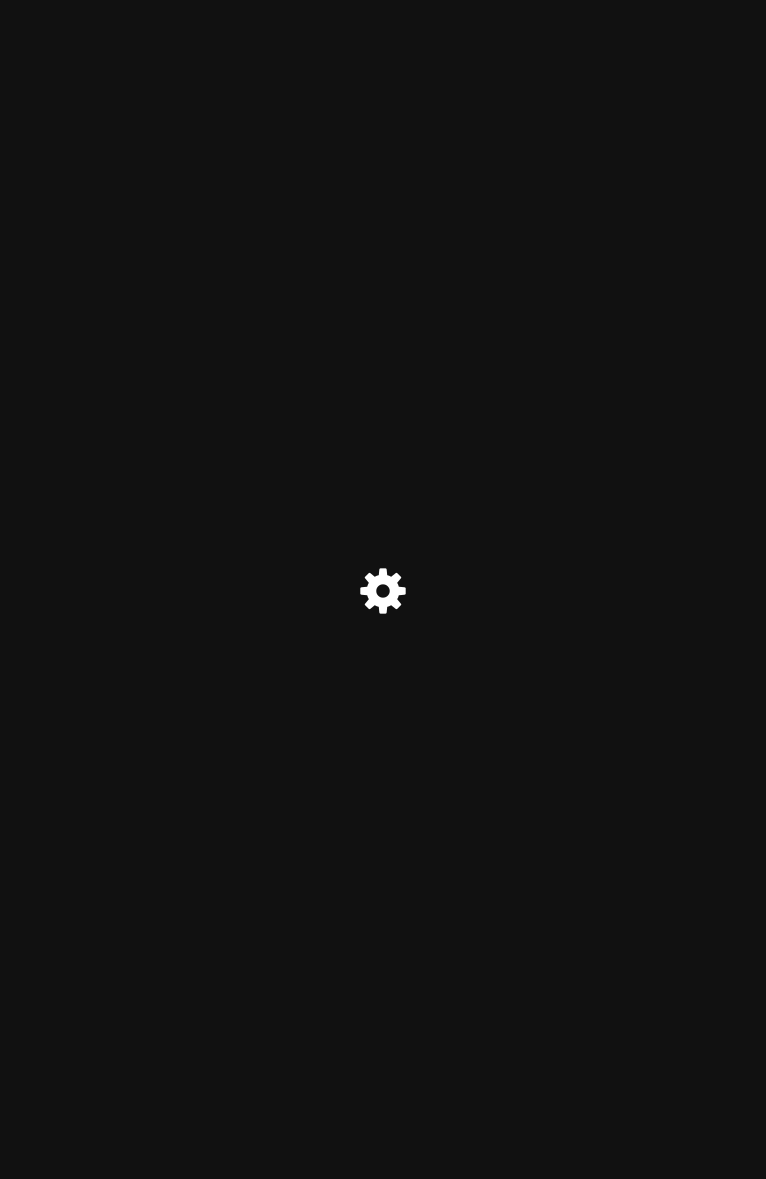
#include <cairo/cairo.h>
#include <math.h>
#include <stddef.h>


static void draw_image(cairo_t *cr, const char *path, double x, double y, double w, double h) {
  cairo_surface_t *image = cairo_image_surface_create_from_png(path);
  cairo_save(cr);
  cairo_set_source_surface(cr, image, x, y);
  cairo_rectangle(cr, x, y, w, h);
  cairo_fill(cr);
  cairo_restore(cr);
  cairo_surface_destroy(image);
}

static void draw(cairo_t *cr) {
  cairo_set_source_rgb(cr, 17 / 255.0, 17 / 255.0, 17 / 255.0);
  cairo_paint(cr);
  draw_image(cr, "images/1.png", 360, 568, 46, 46);
}

int main(void) {
  cairo_surface_t *surface = cairo_image_surface_create(CAIRO_FORMAT_RGB24, 766, 1179);
  cairo_t *cr = cairo_create(surface);
  cairo_font_options_t *options = cairo_font_options_create();
  cairo_font_options_set_hint_metrics(options, CAIRO_HINT_METRICS_OFF);
  cairo_font_options_set_hint_style(options, CAIRO_HINT_STYLE_NONE);
  cairo_set_font_options(cr, options);
  cairo_set_miter_limit(cr, 4);
  draw(cr);
  cairo_surface_write_to_png(surface, "out.png");
  cairo_font_options_destroy(options);
  cairo_destroy(cr);
  cairo_surface_destroy(surface);
  return 0;
}
